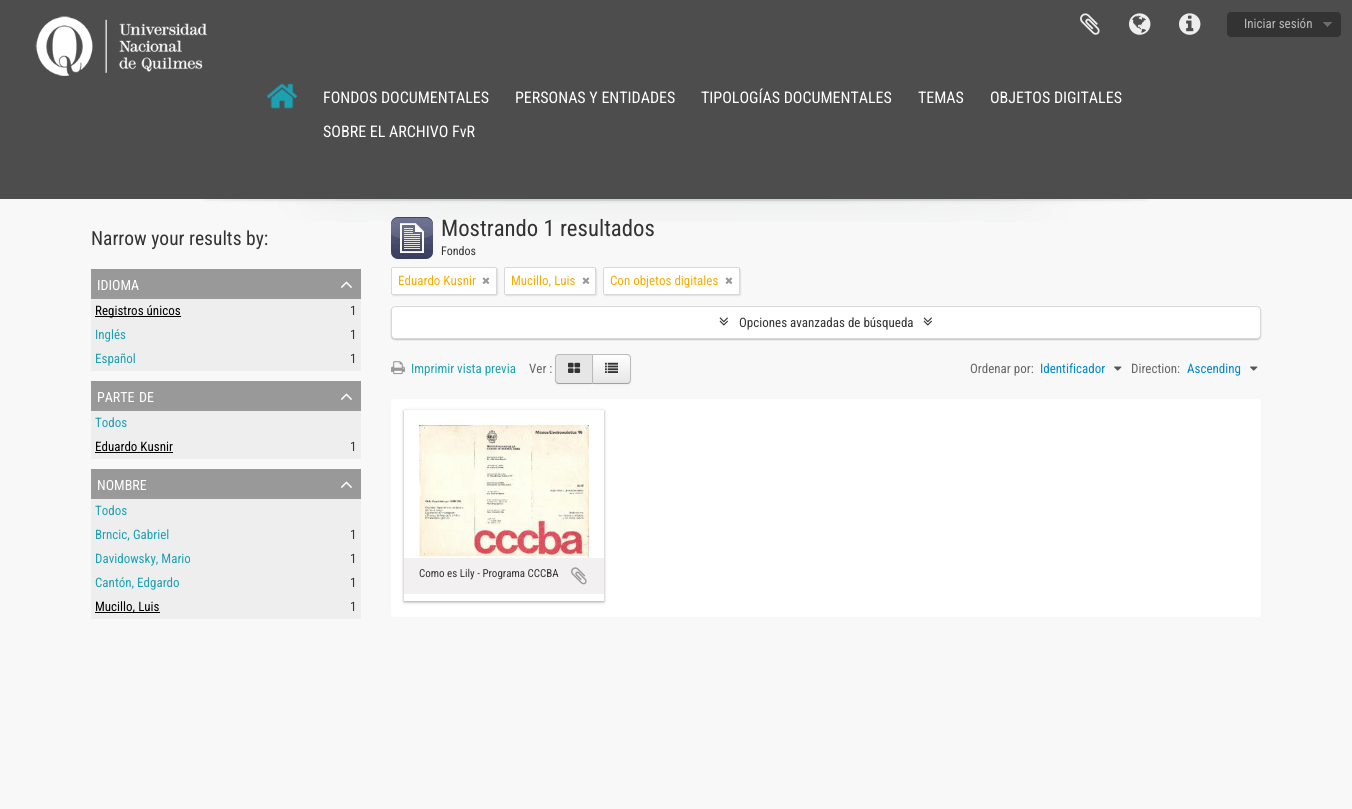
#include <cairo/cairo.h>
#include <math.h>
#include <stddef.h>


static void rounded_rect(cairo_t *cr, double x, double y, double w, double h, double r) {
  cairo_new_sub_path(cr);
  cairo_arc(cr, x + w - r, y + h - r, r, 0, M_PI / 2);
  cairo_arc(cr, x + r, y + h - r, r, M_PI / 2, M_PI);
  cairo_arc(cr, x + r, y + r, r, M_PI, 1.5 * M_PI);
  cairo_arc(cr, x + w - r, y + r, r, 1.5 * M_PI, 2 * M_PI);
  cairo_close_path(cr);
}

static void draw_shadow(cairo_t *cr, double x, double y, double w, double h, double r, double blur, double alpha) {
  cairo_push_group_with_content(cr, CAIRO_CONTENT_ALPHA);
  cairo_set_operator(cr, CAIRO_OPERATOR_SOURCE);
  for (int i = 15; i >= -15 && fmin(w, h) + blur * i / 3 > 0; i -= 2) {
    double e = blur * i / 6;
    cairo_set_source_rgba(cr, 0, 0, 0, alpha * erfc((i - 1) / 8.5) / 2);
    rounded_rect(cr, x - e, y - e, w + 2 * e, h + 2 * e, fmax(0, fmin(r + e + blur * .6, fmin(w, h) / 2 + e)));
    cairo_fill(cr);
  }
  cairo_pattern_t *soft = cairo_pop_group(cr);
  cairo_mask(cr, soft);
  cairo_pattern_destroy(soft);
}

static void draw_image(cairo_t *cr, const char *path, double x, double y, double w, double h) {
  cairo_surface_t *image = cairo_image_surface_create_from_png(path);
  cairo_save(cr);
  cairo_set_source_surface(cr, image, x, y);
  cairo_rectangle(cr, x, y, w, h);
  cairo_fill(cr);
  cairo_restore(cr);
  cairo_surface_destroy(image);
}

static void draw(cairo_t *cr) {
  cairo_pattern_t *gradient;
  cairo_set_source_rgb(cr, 248 / 255.0, 248 / 255.0, 248 / 255.0);
  cairo_paint(cr);
  cairo_set_source_rgb(cr, 77 / 255.0, 77 / 255.0, 77 / 255.0);
  cairo_rectangle(cr, 0, 0, 1352, 199);
  cairo_fill(cr);
  draw_image(cr, "images/1.png", 35, 16, 173, 60);
  draw_image(cr, "images/2.png", 1080, 13, 20, 22);
  draw_image(cr, "images/3.png", 1129, 13, 22, 22);
  draw_image(cr, "images/4.png", 1179, 13, 22, 22);
  cairo_set_source_rgb(cr, 51 / 255.0, 51 / 255.0, 51 / 255.0);
  rounded_rect(cr, 1227, 12, 114, 25, 4);
  cairo_fill(cr);
  draw_image(cr, "images/5.png", 1323, 22, 9, 5);
  draw_image(cr, "images/6.png", 267, 83, 30, 26);
  draw_image(cr, "images/7.png", 203, 199, 946, 23);
  cairo_set_source_rgb(cr, 153 / 255.0, 153 / 255.0, 153 / 255.0);
  cairo_rectangle(cr, 91, 269, 270, 30);
  cairo_fill(cr);
  draw_image(cr, "images/8.png", 341, 281, 11, 7);
  cairo_set_source_rgb(cr, 238 / 255.0, 238 / 255.0, 238 / 255.0);
  cairo_rectangle(cr, 91, 299, 270, 72);
  cairo_fill(cr);
  cairo_set_source_rgb(cr, 0, 0, 0);
  cairo_rectangle(cr, 95, 316, 86, 1);
  cairo_fill(cr);
  cairo_set_source_rgb(cr, 153 / 255.0, 153 / 255.0, 153 / 255.0);
  cairo_rectangle(cr, 91, 381, 270, 30);
  cairo_fill(cr);
  draw_image(cr, "images/8.png", 341, 393, 11, 7);
  cairo_set_source_rgb(cr, 238 / 255.0, 238 / 255.0, 238 / 255.0);
  cairo_rectangle(cr, 91, 411, 270, 48);
  cairo_fill(cr);
  cairo_set_source_rgb(cr, 0, 0, 0);
  cairo_rectangle(cr, 95, 452, 78, 1);
  cairo_fill(cr);
  cairo_set_source_rgb(cr, 153 / 255.0, 153 / 255.0, 153 / 255.0);
  cairo_rectangle(cr, 91, 469, 270, 30);
  cairo_fill(cr);
  draw_image(cr, "images/8.png", 341, 481, 11, 7);
  cairo_set_source_rgb(cr, 238 / 255.0, 238 / 255.0, 238 / 255.0);
  cairo_rectangle(cr, 91, 499, 270, 120);
  cairo_fill(cr);
  cairo_set_source_rgb(cr, 0, 0, 0);
  cairo_rectangle(cr, 95, 612, 65, 1);
  cairo_fill(cr);
  draw_image(cr, "images/9.png", 391, 217, 42, 42);
  cairo_set_source_rgb(cr, 0, 0, 0);
  draw_shadow(cr, 392, 268, 106, 28, 2, 0.5, 0.1);
  cairo_set_source_rgb(cr, 1, 1, 1);
  rounded_rect(cr, 391.5, 267.5, 105, 27, 1.5);
  cairo_fill_preserve(cr);
  cairo_set_source_rgb(cr, 217 / 255.0, 217 / 255.0, 217 / 255.0);
  cairo_set_line_width(cr, 1);
  cairo_stroke(cr);
  draw_image(cr, "images/10.png", 482, 277, 8, 7);
  cairo_set_source_rgb(cr, 0, 0, 0);
  draw_shadow(cr, 505, 268, 92, 28, 2, 0.5, 0.1);
  cairo_set_source_rgb(cr, 1, 1, 1);
  rounded_rect(cr, 504.5, 267.5, 91, 27, 1.5);
  cairo_fill_preserve(cr);
  cairo_set_source_rgb(cr, 217 / 255.0, 217 / 255.0, 217 / 255.0);
  cairo_stroke(cr);
  draw_image(cr, "images/10.png", 582, 277, 8, 7);
  cairo_set_source_rgb(cr, 0, 0, 0);
  draw_shadow(cr, 604, 268, 137, 28, 2, 0.5, 0.1);
  cairo_set_source_rgb(cr, 1, 1, 1);
  rounded_rect(cr, 603.5, 267.5, 136, 27, 1.5);
  cairo_fill_preserve(cr);
  cairo_set_source_rgb(cr, 217 / 255.0, 217 / 255.0, 217 / 255.0);
  cairo_stroke(cr);
  draw_image(cr, "images/10.png", 725, 277, 8, 7);
  cairo_set_source_rgb(cr, 0, 0, 0);
  draw_shadow(cr, 391, 307, 870, 33, 4, 0.5, 0.2);
  cairo_set_source_rgb(cr, 1, 1, 1);
  rounded_rect(cr, 391.5, 306.5, 869, 32, 3.5);
  cairo_fill_preserve(cr);
  cairo_set_source_rgb(cr, 217 / 255.0, 217 / 255.0, 217 / 255.0);
  cairo_stroke(cr);
  draw_image(cr, "images/11.png", 719, 317, 9, 9);
  draw_image(cr, "images/11.png", 923, 317, 9, 9);
  draw_image(cr, "images/12.png", 391, 361, 14, 14);
  cairo_set_source_rgb(cr, 0, 0, 0);
  draw_shadow(cr, 592, 355, 39, 30, 4, 1, 0.05);
  cairo_save(cr);
  cairo_new_path(cr);
  cairo_move_to(cr, 592, 354);
  cairo_line_to(cr, 627, 354);
  cairo_curve_to(cr, 629, 354, 631, 356, 631, 358);
  cairo_line_to(cr, 631, 380);
  cairo_curve_to(cr, 631, 382, 629, 384, 627, 384);
  cairo_line_to(cr, 592, 384);
  cairo_close_path(cr);
  cairo_clip(cr);
  gradient = cairo_pattern_create_linear(612, 355, 612, 383);
  cairo_pattern_add_color_stop_rgba(gradient, 0, 1, 1, 1, 1);
  cairo_pattern_add_color_stop_rgba(gradient, 1, 230 / 255.0, 230 / 255.0, 230 / 255.0, 1);
  cairo_set_source(cr, gradient);
  cairo_pattern_destroy(gradient);
  cairo_rectangle(cr, 593, 355, 38, 28);
  cairo_fill(cr);
  cairo_restore(cr);
  cairo_set_source_rgb(cr, 187 / 255.0, 187 / 255.0, 187 / 255.0);
  cairo_new_path(cr);
  cairo_move_to(cr, 592, 354);
  cairo_line_to(cr, 593, 355);
  cairo_line_to(cr, 627, 355);
  cairo_curve_to(cr, 628, 355, 628.5, 355.5, 629, 356);
  cairo_line_to(cr, 630, 355);
  cairo_curve_to(cr, 629, 354.5, 628, 354, 627, 354);
  cairo_close_path(cr);
  cairo_fill(cr);
  cairo_new_path(cr);
  cairo_move_to(cr, 631, 380);
  cairo_line_to(cr, 631, 358);
  cairo_curve_to(cr, 631, 357, 630.5, 356, 630, 355);
  cairo_line_to(cr, 629, 356);
  cairo_curve_to(cr, 629.5, 356.5, 630, 357, 630, 358);
  cairo_line_to(cr, 630, 380);
  cairo_curve_to(cr, 630, 381, 629.5, 381.5, 629, 382);
  cairo_line_to(cr, 630, 383);
  cairo_curve_to(cr, 630.5, 382, 631, 381, 631, 380);
  cairo_close_path(cr);
  cairo_fill(cr);
  cairo_set_source_rgb(cr, 162 / 255.0, 162 / 255.0, 162 / 255.0);
  cairo_new_path(cr);
  cairo_move_to(cr, 627, 384);
  cairo_curve_to(cr, 628, 384, 629, 383.5, 630, 383);
  cairo_line_to(cr, 629, 382);
  cairo_curve_to(cr, 628.5, 382.5, 628, 383, 627, 383);
  cairo_line_to(cr, 593, 383);
  cairo_line_to(cr, 592, 384);
  cairo_close_path(cr);
  cairo_fill(cr);
  cairo_set_source_rgb(cr, 0, 0, 0);
  draw_shadow(cr, 555, 355, 38, 30, 4, 1, 0.05);
  cairo_set_source_rgb(cr, 230 / 255.0, 230 / 255.0, 230 / 255.0);
  cairo_new_path(cr);
  cairo_move_to(cr, 559, 354);
  cairo_line_to(cr, 593, 354);
  cairo_line_to(cr, 593, 384);
  cairo_line_to(cr, 559, 384);
  cairo_curve_to(cr, 557, 384, 555, 382, 555, 380);
  cairo_line_to(cr, 555, 358);
  cairo_curve_to(cr, 555, 356, 557, 354, 559, 354);
  cairo_close_path(cr);
  cairo_fill(cr);
  cairo_set_source_rgb(cr, 187 / 255.0, 187 / 255.0, 187 / 255.0);
  cairo_new_path(cr);
  cairo_move_to(cr, 559, 354);
  cairo_curve_to(cr, 558, 354, 557, 354.5, 556, 355);
  cairo_line_to(cr, 557, 356);
  cairo_curve_to(cr, 557.5, 355.5, 558, 355, 559, 355);
  cairo_line_to(cr, 592, 355);
  cairo_line_to(cr, 593, 354);
  cairo_close_path(cr);
  cairo_fill(cr);
  cairo_new_path(cr);
  cairo_move_to(cr, 593, 354);
  cairo_line_to(cr, 592, 355);
  cairo_line_to(cr, 592, 383);
  cairo_line_to(cr, 593, 384);
  cairo_close_path(cr);
  cairo_fill(cr);
  cairo_set_source_rgb(cr, 162 / 255.0, 162 / 255.0, 162 / 255.0);
  cairo_new_path(cr);
  cairo_move_to(cr, 593, 384);
  cairo_line_to(cr, 592, 383);
  cairo_line_to(cr, 559, 383);
  cairo_curve_to(cr, 558, 383, 557.5, 382.5, 557, 382);
  cairo_line_to(cr, 556, 383);
  cairo_curve_to(cr, 557, 383.5, 558, 384, 559, 384);
  cairo_close_path(cr);
  cairo_fill(cr);
  cairo_set_source_rgb(cr, 187 / 255.0, 187 / 255.0, 187 / 255.0);
  cairo_new_path(cr);
  cairo_move_to(cr, 555, 358);
  cairo_line_to(cr, 555, 380);
  cairo_curve_to(cr, 555, 381, 555.5, 382, 556, 383);
  cairo_line_to(cr, 557, 382);
  cairo_curve_to(cr, 556.5, 381.5, 556, 381, 556, 380);
  cairo_line_to(cr, 556, 358);
  cairo_curve_to(cr, 556, 357, 556.5, 356.5, 557, 356);
  cairo_line_to(cr, 556, 355);
  cairo_curve_to(cr, 555.5, 356, 555, 357, 555, 358);
  cairo_close_path(cr);
  cairo_fill(cr);
  draw_image(cr, "images/13.png", 568, 362, 13, 11);
  draw_image(cr, "images/14.png", 605, 362, 13, 11);
  draw_image(cr, "images/15.png", 1114, 366, 8, 5);
  draw_image(cr, "images/15.png", 1250, 366, 8, 5);
  cairo_set_source_rgb(cr, 1, 1, 1);
  rounded_rect(cr, 391, 399, 870, 218, 4);
  cairo_fill(cr);
  cairo_save(cr);
  cairo_set_fill_rule(cr, CAIRO_FILL_RULE_EVEN_ODD);
  cairo_new_path(cr);
  cairo_move_to(cr, 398, 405);
  cairo_line_to(cr, 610, 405);
  cairo_line_to(cr, 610, 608);
  cairo_line_to(cr, 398, 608);
  cairo_close_path(cr);
  cairo_move_to(cr, 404, 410);
  cairo_line_to(cr, 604, 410);
  cairo_line_to(cr, 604, 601);
  cairo_line_to(cr, 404, 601);
  cairo_close_path(cr);
  cairo_clip(cr);
  cairo_set_source_rgb(cr, 25 / 255.0, 25 / 255.0, 25 / 255.0);
  draw_shadow(cr, 404, 411, 200, 191, 0, 1.5, 0.4);
  cairo_restore(cr);
  draw_image(cr, "images/16.png", 419, 425, 170, 133);
  cairo_set_source_rgb(cr, 242 / 255.0, 240 / 255.0, 240 / 255.0);
  cairo_rectangle(cr, 404, 558, 200, 36);
  cairo_fill(cr);
  draw_image(cr, "images/17.png", 571, 567, 16, 18);
  cairo_select_font_face(cr, "Roboto Condensed", CAIRO_FONT_SLANT_NORMAL, CAIRO_FONT_WEIGHT_NORMAL);
  cairo_set_font_size(cr, 13);
  cairo_set_source_rgb(cr, 187 / 255.0, 187 / 255.0, 187 / 255.0);
  cairo_move_to(cr, 1244, 28);
  cairo_show_text(cr, "Iniciar sesión");
  cairo_set_font_size(cr, 16);
  cairo_set_source_rgb(cr, 1, 1, 1);
  cairo_move_to(cr, 323, 103);
  cairo_show_text(cr, "FONDOS DOCUMENTALES");
  cairo_move_to(cr, 515, 103);
  cairo_show_text(cr, "PERSONAS Y ENTIDADES");
  cairo_move_to(cr, 701, 103);
  cairo_show_text(cr, "TIPOLOGÍAS DOCUMENTALES");
  cairo_move_to(cr, 918, 103);
  cairo_show_text(cr, "TEMAS");
  cairo_move_to(cr, 990, 103);
  cairo_show_text(cr, "OBJETOS DIGITALES");
  cairo_move_to(cr, 323, 137);
  cairo_show_text(cr, "SOBRE EL ARCHIVO FvR");
  cairo_set_font_size(cr, 19.5);
  cairo_set_source_rgb(cr, 51 / 255.0, 51 / 255.0, 51 / 255.0);
  cairo_move_to(cr, 91, 245);
  cairo_show_text(cr, "Narrow your results by:");
  cairo_set_font_size(cr, 14);
  cairo_set_source_rgb(cr, 1, 1, 1);
  cairo_move_to(cr, 97, 290);
  cairo_show_text(cr, "IDIOMA");
  cairo_set_font_size(cr, 13);
  cairo_set_source_rgb(cr, 0, 0, 0);
  cairo_move_to(cr, 95, 315);
  cairo_show_text(cr, "Registros únicos");
  cairo_set_source_rgb(cr, 51 / 255.0, 51 / 255.0, 51 / 255.0);
  cairo_move_to(cr, 350, 315);
  cairo_show_text(cr, "1");
  cairo_set_source_rgb(cr, 27 / 255.0, 161 / 255.0, 178 / 255.0);
  cairo_move_to(cr, 95, 339);
  cairo_show_text(cr, "Inglés");
  cairo_set_source_rgb(cr, 51 / 255.0, 51 / 255.0, 51 / 255.0);
  cairo_move_to(cr, 350, 339);
  cairo_show_text(cr, "1");
  cairo_set_source_rgb(cr, 27 / 255.0, 161 / 255.0, 178 / 255.0);
  cairo_move_to(cr, 95, 363);
  cairo_show_text(cr, "Español");
  cairo_set_source_rgb(cr, 51 / 255.0, 51 / 255.0, 51 / 255.0);
  cairo_move_to(cr, 350, 363);
  cairo_show_text(cr, "1");
  cairo_set_font_size(cr, 14);
  cairo_set_source_rgb(cr, 1, 1, 1);
  cairo_move_to(cr, 97, 402);
  cairo_show_text(cr, "PARTE");
  cairo_move_to(cr, 139, 402);
  cairo_show_text(cr, "DE");
  cairo_set_font_size(cr, 13);
  cairo_set_source_rgb(cr, 27 / 255.0, 161 / 255.0, 178 / 255.0);
  cairo_move_to(cr, 95, 427);
  cairo_show_text(cr, "Todos");
  cairo_set_source_rgb(cr, 0, 0, 0);
  cairo_move_to(cr, 95, 451);
  cairo_show_text(cr, "Eduardo Kusnir");
  cairo_set_source_rgb(cr, 51 / 255.0, 51 / 255.0, 51 / 255.0);
  cairo_move_to(cr, 350, 451);
  cairo_show_text(cr, "1");
  cairo_set_font_size(cr, 14);
  cairo_set_source_rgb(cr, 1, 1, 1);
  cairo_move_to(cr, 97, 490);
  cairo_show_text(cr, "NOMBRE");
  cairo_set_font_size(cr, 13);
  cairo_set_source_rgb(cr, 27 / 255.0, 161 / 255.0, 178 / 255.0);
  cairo_move_to(cr, 95, 515);
  cairo_show_text(cr, "Todos");
  cairo_move_to(cr, 95, 539);
  cairo_show_text(cr, "Brncic, Gabriel");
  cairo_set_source_rgb(cr, 51 / 255.0, 51 / 255.0, 51 / 255.0);
  cairo_move_to(cr, 350, 539);
  cairo_show_text(cr, "1");
  cairo_set_source_rgb(cr, 27 / 255.0, 161 / 255.0, 178 / 255.0);
  cairo_move_to(cr, 95, 563);
  cairo_show_text(cr, "Davidowsky, Mario");
  cairo_set_source_rgb(cr, 51 / 255.0, 51 / 255.0, 51 / 255.0);
  cairo_move_to(cr, 350, 563);
  cairo_show_text(cr, "1");
  cairo_set_source_rgb(cr, 27 / 255.0, 161 / 255.0, 178 / 255.0);
  cairo_move_to(cr, 95, 587);
  cairo_show_text(cr, "Cantón, Edgardo");
  cairo_set_source_rgb(cr, 51 / 255.0, 51 / 255.0, 51 / 255.0);
  cairo_move_to(cr, 350, 587);
  cairo_show_text(cr, "1");
  cairo_set_source_rgb(cr, 0, 0, 0);
  cairo_move_to(cr, 95, 611);
  cairo_show_text(cr, "Mucillo, Luis");
  cairo_set_source_rgb(cr, 51 / 255.0, 51 / 255.0, 51 / 255.0);
  cairo_move_to(cr, 350, 611);
  cairo_show_text(cr, "1");
  cairo_set_font_size(cr, 22.75);
  cairo_move_to(cr, 441, 236);
  cairo_show_text(cr, "Mostrando 1 resultados");
  cairo_set_font_size(cr, 12);
  cairo_move_to(cr, 441, 255);
  cairo_show_text(cr, "Fondos");
  cairo_set_font_size(cr, 13);
  cairo_set_source_rgb(cr, 246 / 255.0, 172 / 255.0, 0);
  cairo_move_to(cr, 398, 285);
  cairo_show_text(cr, "Eduardo Kusnir");
  cairo_move_to(cr, 511, 285);
  cairo_show_text(cr, "Mucillo, Luis");
  cairo_move_to(cr, 610, 285);
  cairo_show_text(cr, "Con objetos digitales");
  cairo_set_source_rgb(cr, 51 / 255.0, 51 / 255.0, 51 / 255.0);
  cairo_move_to(cr, 739, 327);
  cairo_show_text(cr, "Opciones avanzadas de búsqueda");
  cairo_set_source_rgb(cr, 27 / 255.0, 161 / 255.0, 178 / 255.0);
  cairo_move_to(cr, 411, 373);
  cairo_show_text(cr, "Imprimir vista previa");
  cairo_set_source_rgb(cr, 102 / 255.0, 102 / 255.0, 102 / 255.0);
  cairo_move_to(cr, 529, 373);
  cairo_show_text(cr, "Ver :");
  cairo_move_to(cr, 970, 373);
  cairo_show_text(cr, "Ordenar por:");
  cairo_set_source_rgb(cr, 0, 136 / 255.0, 204 / 255.0);
  cairo_move_to(cr, 1040, 373);
  cairo_show_text(cr, "Identificador");
  cairo_set_source_rgb(cr, 102 / 255.0, 102 / 255.0, 102 / 255.0);
  cairo_move_to(cr, 1131, 373);
  cairo_show_text(cr, "Direction:");
  cairo_set_source_rgb(cr, 0, 136 / 255.0, 204 / 255.0);
  cairo_move_to(cr, 1187, 373);
  cairo_show_text(cr, "Ascending");
  cairo_set_font_size(cr, 11);
  cairo_set_source_rgb(cr, 51 / 255.0, 51 / 255.0, 51 / 255.0);
  cairo_move_to(cr, 419, 577);
  cairo_show_text(cr, "Como es Lily - Programa CCCBA");
}

int main(void) {
  cairo_surface_t *surface = cairo_image_surface_create(CAIRO_FORMAT_RGB24, 1352, 809);
  cairo_t *cr = cairo_create(surface);
  cairo_font_options_t *options = cairo_font_options_create();
  cairo_font_options_set_hint_metrics(options, CAIRO_HINT_METRICS_OFF);
  cairo_font_options_set_hint_style(options, CAIRO_HINT_STYLE_NONE);
  cairo_set_font_options(cr, options);
  cairo_set_miter_limit(cr, 4);
  draw(cr);
  cairo_surface_write_to_png(surface, "out.png");
  cairo_font_options_destroy(options);
  cairo_destroy(cr);
  cairo_surface_destroy(surface);
  return 0;
}
